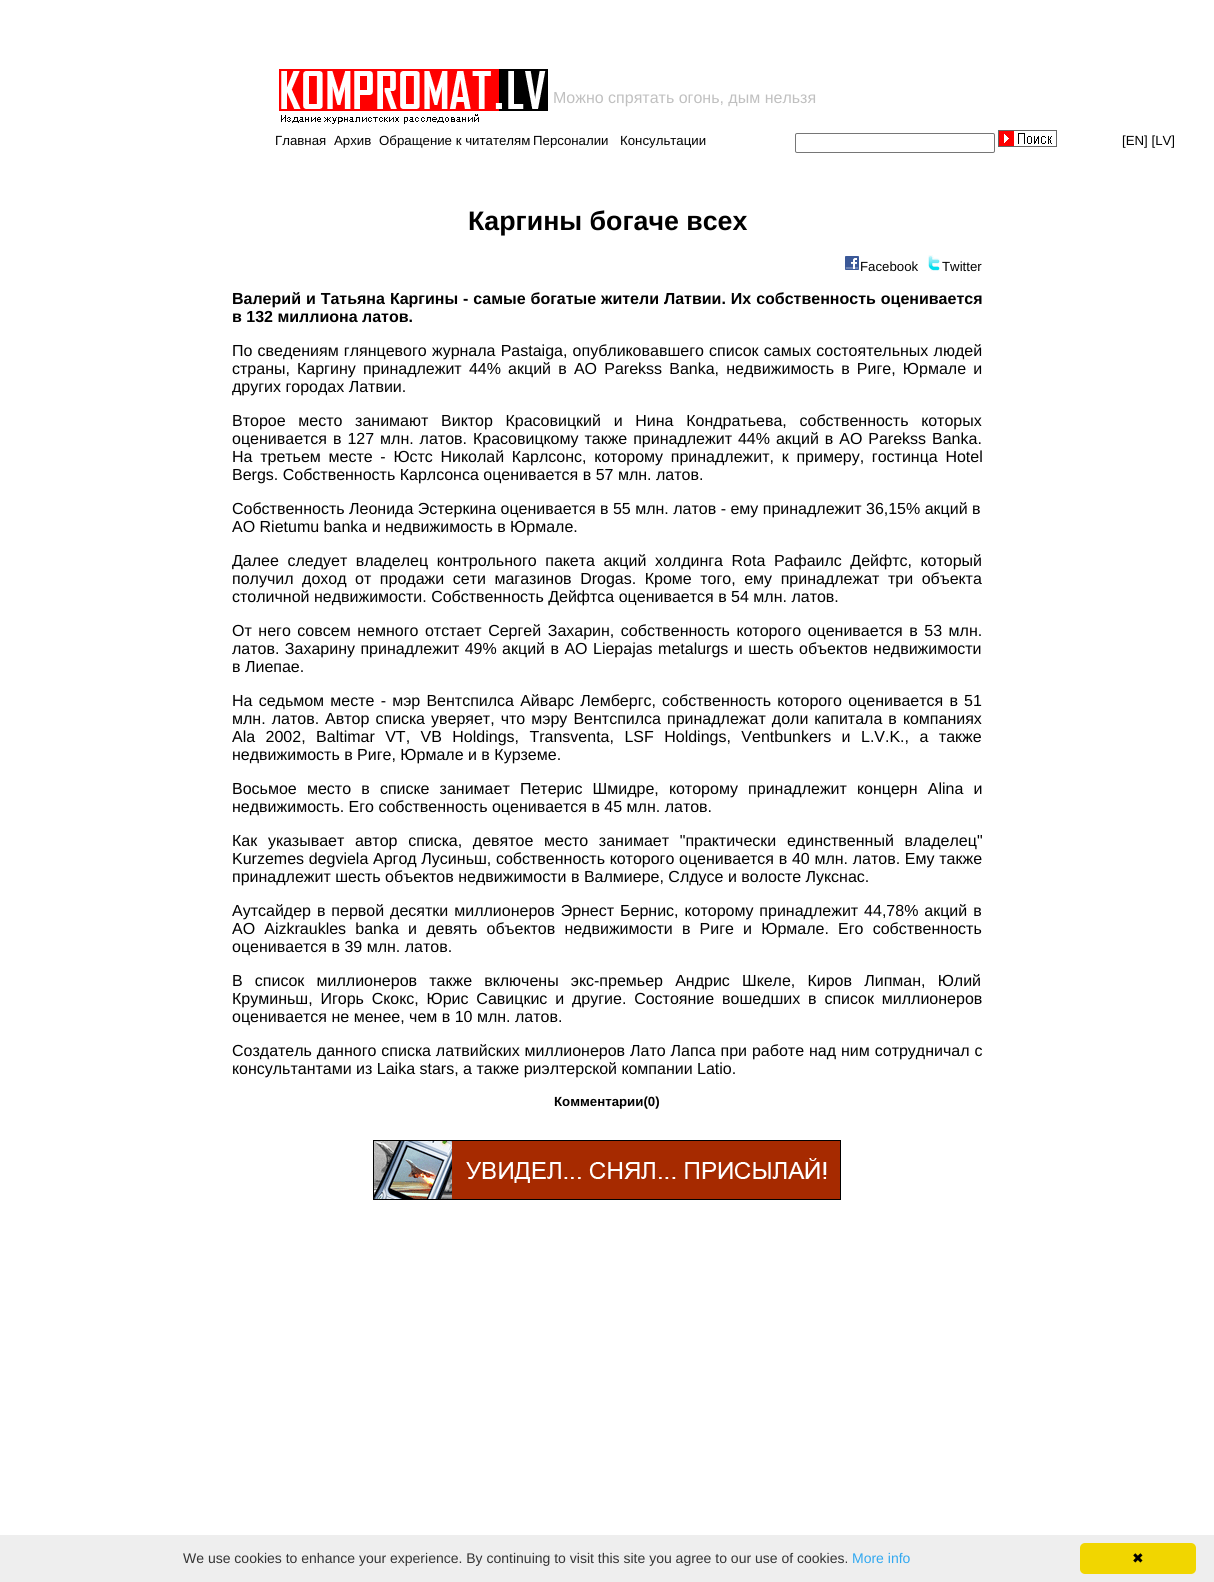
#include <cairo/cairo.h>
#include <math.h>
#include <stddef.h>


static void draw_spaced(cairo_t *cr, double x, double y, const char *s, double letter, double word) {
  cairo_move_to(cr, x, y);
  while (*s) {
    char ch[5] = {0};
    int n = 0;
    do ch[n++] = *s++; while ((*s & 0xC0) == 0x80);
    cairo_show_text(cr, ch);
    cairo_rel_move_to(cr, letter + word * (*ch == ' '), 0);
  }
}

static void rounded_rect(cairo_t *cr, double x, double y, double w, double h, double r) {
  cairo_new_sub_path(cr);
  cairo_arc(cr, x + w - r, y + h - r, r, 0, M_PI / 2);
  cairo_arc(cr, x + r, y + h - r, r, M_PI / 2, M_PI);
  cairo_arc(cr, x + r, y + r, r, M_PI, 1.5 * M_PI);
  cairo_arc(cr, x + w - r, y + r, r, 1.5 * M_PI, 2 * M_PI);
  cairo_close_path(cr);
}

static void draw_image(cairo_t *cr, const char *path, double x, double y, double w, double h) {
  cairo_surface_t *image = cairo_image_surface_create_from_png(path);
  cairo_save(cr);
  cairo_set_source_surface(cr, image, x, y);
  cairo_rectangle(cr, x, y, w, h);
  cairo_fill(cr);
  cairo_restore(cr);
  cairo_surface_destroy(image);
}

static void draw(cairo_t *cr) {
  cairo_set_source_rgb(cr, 1, 1, 1);
  cairo_paint(cr);
  draw_image(cr, "images/1.png", 279, 69, 269, 55);
  rounded_rect(cr, 795.5, 133.5, 199, 19, 1.5);
  cairo_set_source_rgb(cr, 118 / 255.0, 118 / 255.0, 118 / 255.0);
  cairo_set_line_width(cr, 1);
  cairo_stroke(cr);
  draw_image(cr, "images/2.png", 998, 130, 59, 17);
  draw_image(cr, "images/3.png", 845, 256, 14, 14);
  draw_image(cr, "images/4.png", 928, 255, 12, 16);
  draw_image(cr, "images/5.png", 373, 1140, 468, 60);
  cairo_set_source_rgb(cr, 238 / 255.0, 238 / 255.0, 238 / 255.0);
  cairo_rectangle(cr, 0, 1535, 1214, 47);
  cairo_fill(cr);
  cairo_set_source_rgb(cr, 241 / 255.0, 214 / 255.0, 0);
  rounded_rect(cr, 1080, 1543, 116, 31, 5);
  cairo_fill(cr);
  cairo_select_font_face(cr, "Liberation Sans", CAIRO_FONT_SLANT_NORMAL, CAIRO_FONT_WEIGHT_NORMAL);
  cairo_set_font_size(cr, 16);
  cairo_set_source_rgb(cr, 192 / 255.0, 192 / 255.0, 192 / 255.0);
  cairo_move_to(cr, 553, 103);
  cairo_show_text(cr, "Можно спрятать огонь, дым нельзя");
  cairo_set_font_size(cr, 13.25);
  cairo_set_source_rgb(cr, 0, 0, 0);
  cairo_move_to(cr, 275, 145);
  cairo_show_text(cr, "Главная");
  cairo_move_to(cr, 334, 145);
  cairo_show_text(cr, "Архив");
  cairo_move_to(cr, 379, 145);
  cairo_show_text(cr, "Обращение к читателям");
  cairo_move_to(cr, 533, 145);
  cairo_show_text(cr, "Персоналии");
  cairo_move_to(cr, 620, 145);
  cairo_show_text(cr, "Консультации");
  cairo_move_to(cr, 1122, 145);
  cairo_show_text(cr, "[EN] [LV]");
  cairo_select_font_face(cr, "Liberation Sans", CAIRO_FONT_SLANT_NORMAL, CAIRO_FONT_WEIGHT_BOLD);
  cairo_set_font_size(cr, 26.75);
  cairo_move_to(cr, 468, 230);
  cairo_show_text(cr, "Каргины богаче всех");
  cairo_select_font_face(cr, "Liberation Sans", CAIRO_FONT_SLANT_NORMAL, CAIRO_FONT_WEIGHT_NORMAL);
  cairo_set_font_size(cr, 13.25);
  cairo_move_to(cr, 860, 271);
  cairo_show_text(cr, "Facebook");
  cairo_move_to(cr, 942, 271);
  cairo_show_text(cr, "Twitter");
  cairo_select_font_face(cr, "Liberation Sans", CAIRO_FONT_SLANT_NORMAL, CAIRO_FONT_WEIGHT_BOLD);
  cairo_set_font_size(cr, 16);
  draw_spaced(cr, 232, 304, "Валерий и Татьяна Каргины - самые богатые жители Латвии. Их собственность оценивается", 0, 0.5);
  cairo_move_to(cr, 232, 322);
  cairo_show_text(cr, "в 132 миллиона латов.");
  cairo_select_font_face(cr, "Liberation Sans", CAIRO_FONT_SLANT_NORMAL, CAIRO_FONT_WEIGHT_NORMAL);
  draw_spaced(cr, 232, 356, "По сведениям глянцевого журнала Pastaiga, опубликовавшего список самых состоятельных людей", 0, 0.75);
  cairo_move_to(cr, 232, 374);
  cairo_show_text(cr, "страны,");
  draw_spaced(cr, 297, 374, "Каргину принадлежит 44% акций в AО Parekss Banka, недвижимость в Риге, Юрмале и", 0, 2.75);
  cairo_move_to(cr, 232, 392);
  cairo_show_text(cr, "других городах Латвии.");
  draw_spaced(cr, 232, 426, "Второе место занимают Виктор Красовицкий и Нина Кондратьева, собственность которых", 0, 8.25);
  draw_spaced(cr, 232, 444, "оценивается в 127 млн. латов. Красовицкому также принадлежит 44% акций в АО Parekss Banka.", 0, 1.5);
  draw_spaced(cr, 232, 462, "На третьем месте - Юстс Николай Карлсонс, которому принадлежит, к примеру, гостинца Hotel", 0, 3.25);
  cairo_move_to(cr, 232, 480);
  cairo_show_text(cr, "Bergs. Собственность Карлсонса оценивается в 57 млн. латов.");
  cairo_move_to(cr, 232, 514);
  cairo_show_text(cr, "Собственность Леонида Эстеркина оценивается в 55 млн. латов - ему принадлежит 36,15% акций в");
  cairo_move_to(cr, 232, 532);
  cairo_show_text(cr, "АО Rietumu banka и недвижимость в Юрмале.");
  draw_spaced(cr, 232, 566, "Далее следует владелец контрольного пакета акций холдинга Rota Рафаилс Дейфтс, который", 0, 4.1);
  draw_spaced(cr, 232, 584, "получил доход от продажи сети магазинов Drogas. Кроме того, ему принадлежат три объекта", 0, 4.1);
  cairo_move_to(cr, 232, 602);
  cairo_show_text(cr, "столичной недвижимости. Собственность Дейфтса оценивается в 54 млн. латов.");
  draw_spaced(cr, 232, 636, "От него совсем немного отстает Сергей Захарин, собственность которого оценивается в 53 млн.", 0, 2.1);
  draw_spaced(cr, 232, 654, "латов. Захарину принадлежит 49% акций в АО Liepаjas metalurgs и шесть объектов недвижимости", 0, 1);
  cairo_move_to(cr, 232, 672);
  cairo_show_text(cr, "в Лиепае.");
  draw_spaced(cr, 232, 706, "На седьмом месте - мэр Вентспилса Айварс Лембергс, собственность которого оценивается в 51", 0, 1.75);
  draw_spaced(cr, 232, 724, "млн. латов. Автор списка уверяет, что мэру Вентспилса принадлежат доли капитала в компаниях", 0, 1.6);
  draw_spaced(cr, 232, 742, "Ala 2002, Baltimar VT, VB Holdings, Transventa, LSF Holdings, Ventbunkers и L.V.K., а также", 0, 6);
  cairo_move_to(cr, 232, 760);
  cairo_show_text(cr, "недвижимость в Риге, Юрмале и в Курземе.");
  draw_spaced(cr, 232, 794, "Восьмое место в списке занимает Петерис Шмидре, которому принадлежит концерн Alina и", 0, 5.75);
  cairo_move_to(cr, 232, 812);
  cairo_show_text(cr, "недвижимость. Его собственность оценивается в 45 млн. латов.");
  draw_spaced(cr, 232, 846, "Как указывает автор списка, девятое место занимает \"практически единственный владелец\"", 0, 6.25);
  draw_spaced(cr, 232, 864, "Kurzemes degviela Аргод Лусиньш, собственность которого оценивается в 40 млн. латов. Ему также", 0, 0.25);
  cairo_move_to(cr, 232, 882);
  cairo_show_text(cr, "принадлежит шесть объектов недвижимости в Валмиере, Слдусе и волосте Лукснас.");
  draw_spaced(cr, 232, 916, "Аутсайдер в первой десятки миллионеров Эрнест Бернис, которому принадлежит 44,78% акций в", 0, 1.5);
  draw_spaced(cr, 232, 934, "АО Aizkraukles banka и девять объектов недвижимости в Риге и Юрмале. Его собственность", 0, 4.75);
  cairo_move_to(cr, 232, 952);
  cairo_show_text(cr, "оценивается в 39 млн. латов.");
  draw_spaced(cr, 232, 986, "В список миллионеров также включены экс-премьер Андрис Шкеле, Киров Липман, Юлий", 0, 7.75);
  draw_spaced(cr, 232, 1004, "Круминьш, Игорь Скокс, Юрис Савицкис и другие. Состояние вошедших в список миллионеров", 0, 3.4);
  cairo_move_to(cr, 232, 1022);
  cairo_show_text(cr, "оценивается не менее, чем в 10 млн. латов.");
  draw_spaced(cr, 232, 1056, "Создатель данного списка латвийских миллионеров Лато Лапса при работе над ним сотрудничал с", 0, 0.5);
  cairo_move_to(cr, 232, 1074);
  cairo_show_text(cr, "консультантами из Laika stars, а также риэлтерской компании Latio.");
  cairo_select_font_face(cr, "Liberation Sans", CAIRO_FONT_SLANT_NORMAL, CAIRO_FONT_WEIGHT_BOLD);
  cairo_set_font_size(cr, 13.25);
  cairo_move_to(cr, 554, 1106);
  cairo_show_text(cr, "Комментарии(0)");
  cairo_select_font_face(cr, "Liberation Sans", CAIRO_FONT_SLANT_NORMAL, CAIRO_FONT_WEIGHT_NORMAL);
  cairo_set_font_size(cr, 14);
  cairo_set_source_rgb(cr, 51 / 255.0, 51 / 255.0, 51 / 255.0);
  cairo_move_to(cr, 183, 1563);
  cairo_show_text(cr, "We use cookies to enhance your experience. By continuing to visit this site you agree to our use of cookies.");
  cairo_set_source_rgb(cr, 49 / 255.0, 168 / 255.0, 240 / 255.0);
  cairo_move_to(cr, 852, 1563);
  cairo_show_text(cr, "More info");
  cairo_select_font_face(cr, "DejaVu Sans", CAIRO_FONT_SLANT_NORMAL, CAIRO_FONT_WEIGHT_NORMAL);
  cairo_set_source_rgb(cr, 0, 0, 0);
  cairo_move_to(cr, 1132, 1563);
  cairo_show_text(cr, "✖");
}

int main(void) {
  cairo_surface_t *surface = cairo_image_surface_create(CAIRO_FORMAT_RGB24, 1214, 1582);
  cairo_t *cr = cairo_create(surface);
  cairo_font_options_t *options = cairo_font_options_create();
  cairo_font_options_set_hint_metrics(options, CAIRO_HINT_METRICS_OFF);
  cairo_font_options_set_hint_style(options, CAIRO_HINT_STYLE_NONE);
  cairo_set_font_options(cr, options);
  cairo_set_miter_limit(cr, 4);
  draw(cr);
  cairo_surface_write_to_png(surface, "out.png");
  cairo_font_options_destroy(options);
  cairo_destroy(cr);
  cairo_surface_destroy(surface);
  return 0;
}
